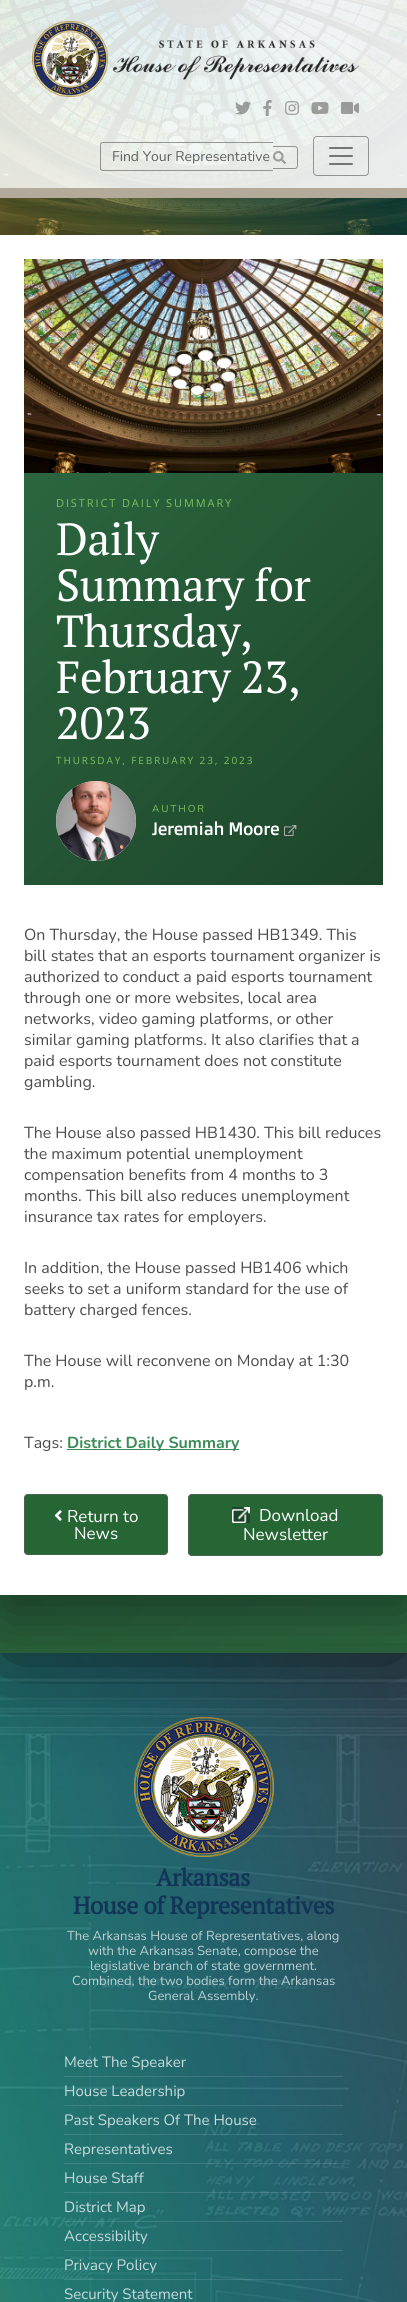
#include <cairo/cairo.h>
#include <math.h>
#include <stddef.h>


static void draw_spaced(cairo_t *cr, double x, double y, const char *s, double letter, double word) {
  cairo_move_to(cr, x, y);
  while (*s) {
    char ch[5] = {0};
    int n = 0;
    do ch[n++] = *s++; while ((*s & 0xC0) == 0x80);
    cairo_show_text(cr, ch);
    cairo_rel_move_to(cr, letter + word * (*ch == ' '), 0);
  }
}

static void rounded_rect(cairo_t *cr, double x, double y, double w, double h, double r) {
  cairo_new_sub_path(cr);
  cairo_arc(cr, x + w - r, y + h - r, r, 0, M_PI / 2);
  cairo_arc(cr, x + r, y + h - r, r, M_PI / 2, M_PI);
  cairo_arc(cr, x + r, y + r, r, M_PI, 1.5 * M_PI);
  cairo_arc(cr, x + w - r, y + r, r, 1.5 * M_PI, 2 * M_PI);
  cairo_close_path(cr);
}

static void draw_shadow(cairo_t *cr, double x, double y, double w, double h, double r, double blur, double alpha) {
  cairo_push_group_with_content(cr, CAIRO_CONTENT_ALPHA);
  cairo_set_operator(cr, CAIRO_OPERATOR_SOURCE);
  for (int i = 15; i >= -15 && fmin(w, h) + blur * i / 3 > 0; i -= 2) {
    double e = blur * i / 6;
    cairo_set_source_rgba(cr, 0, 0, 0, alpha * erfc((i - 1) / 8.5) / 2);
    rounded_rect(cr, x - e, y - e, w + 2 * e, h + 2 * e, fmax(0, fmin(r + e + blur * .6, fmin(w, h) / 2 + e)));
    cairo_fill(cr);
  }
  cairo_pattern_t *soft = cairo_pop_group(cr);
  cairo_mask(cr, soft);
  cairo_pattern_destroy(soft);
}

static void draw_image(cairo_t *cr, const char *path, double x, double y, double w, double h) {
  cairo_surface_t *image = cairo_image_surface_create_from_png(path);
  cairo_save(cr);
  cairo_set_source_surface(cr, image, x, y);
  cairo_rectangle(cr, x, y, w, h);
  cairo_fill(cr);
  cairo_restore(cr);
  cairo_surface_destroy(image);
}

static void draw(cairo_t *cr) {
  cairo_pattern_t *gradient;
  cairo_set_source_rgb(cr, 1, 1, 1);
  cairo_paint(cr);
  draw_image(cr, "images/1.png", 0, 0, 407, 235);
  draw_image(cr, "images/15.png", 0, 1653, 407, 649);
  draw_image(cr, "images/16.png", 134, 1717, 140, 140);
  cairo_set_source_rgb(cr, 0, 0, 0);
  draw_shadow(cr, 0, 281, 407, 1378, 0, 50, 0.7);
  gradient = cairo_pattern_create_linear(-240, 515, 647, 1403);
  cairo_pattern_add_color_stop_rgba(gradient, 0, 29 / 255.0, 69 / 255.0, 42 / 255.0, 1);
  cairo_pattern_add_color_stop_rgba(gradient, 1, 43 / 255.0, 102 / 255.0, 63 / 255.0, 1);
  cairo_set_source(cr, gradient);
  cairo_pattern_destroy(gradient);
  cairo_rectangle(cr, 0, 1595, 407, 48);
  cairo_fill(cr);
  gradient = cairo_pattern_create_linear(-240, 1883, 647, 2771);
  cairo_pattern_add_color_stop_rgba(gradient, 0, 40 / 255.0, 96 / 255.0, 59 / 255.0, 1);
  cairo_pattern_add_color_stop_rgba(gradient, 1, 44 / 255.0, 106 / 255.0, 65 / 255.0, 1);
  cairo_set_source(cr, gradient);
  cairo_pattern_destroy(gradient);
  cairo_rectangle(cr, 0, 1643, 407, 10);
  cairo_fill(cr);
  cairo_set_source_rgb(cr, 0, 0, 0);
  draw_shadow(cr, 4, 251, 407, 1360, 0, 30, 0.4);
  cairo_set_source_rgb(cr, 1, 1, 1);
  cairo_rectangle(cr, 0, 235, 407, 1360);
  cairo_fill(cr);
  cairo_save(cr);
  cairo_rectangle(cr, 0, 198, 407, 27);
  cairo_clip(cr);
  cairo_set_source_rgb(cr, 0, 0, 0);
  draw_shadow(cr, 4, 8, 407, 198, 0, 15, 0.2);
  cairo_restore(cr);
  cairo_set_source_rgb(cr, 179 / 255.0, 170 / 255.0, 153 / 255.0);
  cairo_rectangle(cr, 0, 188, 407, 10);
  cairo_fill(cr);
  gradient = cairo_pattern_create_linear(55, -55, 352, 243);
  cairo_pattern_add_color_stop_rgba(gradient, 0, 1, 1, 1, 0.8);
  cairo_pattern_add_color_stop_rgba(gradient, 1, 1, 1, 1, 0.9);
  cairo_set_source(cr, gradient);
  cairo_pattern_destroy(gradient);
  cairo_rectangle(cr, 0, 0, 407, 188);
  cairo_fill(cr);
  draw_image(cr, "images/2.png", 32, 21, 327, 76);
  draw_image(cr, "images/3.png", 235, 101, 16, 14);
  draw_image(cr, "images/4.png", 263, 100, 9, 16);
  draw_image(cr, "images/5.png", 285, 101, 14, 14);
  draw_image(cr, "images/6.png", 311, 102, 18, 12);
  draw_image(cr, "images/7.png", 341, 102, 18, 12);
  cairo_set_source_rgba(cr, 100 / 255.0, 100 / 255.0, 100 / 255.0, 0.65);
  cairo_set_fill_rule(cr, CAIRO_FILL_RULE_EVEN_ODD);
  cairo_new_path(cr);
  cairo_move_to(cr, 103, 142);
  cairo_line_to(cr, 273, 142);
  cairo_line_to(cr, 273, 171);
  cairo_line_to(cr, 103, 171);
  cairo_curve_to(cr, 101, 171, 100, 170, 100, 168);
  cairo_line_to(cr, 100, 145);
  cairo_curve_to(cr, 100, 143, 101, 142, 103, 142);
  cairo_close_path(cr);
  cairo_move_to(cr, 103, 143);
  cairo_line_to(cr, 273, 143);
  cairo_line_to(cr, 273, 170);
  cairo_line_to(cr, 103, 170);
  cairo_curve_to(cr, 102, 170, 101, 169, 101, 168);
  cairo_line_to(cr, 101, 145);
  cairo_curve_to(cr, 101, 144, 102, 143, 103, 143);
  cairo_close_path(cr);
  cairo_fill(cr);
  cairo_new_path(cr);
  cairo_move_to(cr, 273, 146);
  cairo_line_to(cr, 295, 146);
  cairo_curve_to(cr, 296.5, 146, 298, 147.5, 298, 149);
  cairo_line_to(cr, 298, 166);
  cairo_curve_to(cr, 298, 167.5, 296.5, 169, 295, 169);
  cairo_line_to(cr, 273, 169);
  cairo_close_path(cr);
  cairo_move_to(cr, 273, 147);
  cairo_line_to(cr, 295, 147);
  cairo_curve_to(cr, 296, 147, 297, 148, 297, 149);
  cairo_line_to(cr, 297, 166);
  cairo_curve_to(cr, 297, 167, 296, 168, 295, 168);
  cairo_line_to(cr, 273, 168);
  cairo_close_path(cr);
  cairo_fill(cr);
  draw_image(cr, "images/8.png", 273, 151, 13, 13);
  rounded_rect(cr, 313.5, 136.5, 55, 39, 3.5);
  cairo_set_line_width(cr, 1);
  cairo_stroke(cr);
  draw_image(cr, "images/9.png", 329, 147, 24, 18);
  draw_image(cr, "images/10.png", 24, 259, 359, 214);
  gradient = cairo_pattern_create_linear(11, 486, 396, 872);
  cairo_pattern_add_color_stop_rgba(gradient, 0, 43 / 255.0, 102 / 255.0, 63 / 255.0, 1);
  cairo_pattern_add_color_stop_rgba(gradient, 1, 29 / 255.0, 69 / 255.0, 42 / 255.0, 1);
  cairo_set_source(cr, gradient);
  cairo_pattern_destroy(gradient);
  cairo_rectangle(cr, 24, 473, 359, 412);
  cairo_fill(cr);
  cairo_set_source_rgb(cr, 216 / 255.0, 216 / 255.0, 216 / 255.0);
  cairo_arc(cr, 96, 821, 40, 0, 2 * M_PI);
  cairo_fill(cr);
  draw_image(cr, "images/11.png", 56, 781, 80, 80);
  draw_image(cr, "images/12.png", 284, 825, 13, 11);
  cairo_set_source_rgb(cr, 58 / 255.0, 140 / 255.0, 86 / 255.0);
  cairo_rectangle(cr, 67, 1449, 172, 1);
  cairo_fill(cr);
  cairo_set_source_rgb(cr, 38 / 255.0, 102 / 255.0, 52 / 255.0);
  rounded_rect(cr, 24, 1494, 144, 61, 4);
  cairo_fill(cr);
  rounded_rect(cr, 24.5, 1494.5, 143, 60, 3.5);
  cairo_set_source_rgba(cr, 100 / 255.0, 100 / 255.0, 100 / 255.0, 0.5);
  cairo_stroke(cr);
  draw_image(cr, "images/13.png", 54, 1510, 8, 11);
  cairo_set_source_rgb(cr, 38 / 255.0, 102 / 255.0, 52 / 255.0);
  rounded_rect(cr, 188, 1494, 195, 62, 4);
  cairo_fill(cr);
  rounded_rect(cr, 188.5, 1494.5, 194, 61, 3.5);
  cairo_set_source_rgba(cr, 100 / 255.0, 100 / 255.0, 100 / 255.0, 0.5);
  cairo_stroke(cr);
  draw_image(cr, "images/14.png", 232, 1507, 18, 16);
  cairo_set_source_rgba(cr, 1, 1, 1, 0.12);
  cairo_rectangle(cr, 64, 2076, 279, 1);
  cairo_fill(cr);
  cairo_rectangle(cr, 64, 2105, 279, 1);
  cairo_fill(cr);
  cairo_rectangle(cr, 64, 2134, 279, 1);
  cairo_fill(cr);
  cairo_rectangle(cr, 64, 2163, 279, 1);
  cairo_fill(cr);
  cairo_rectangle(cr, 64, 2192, 279, 1);
  cairo_fill(cr);
  cairo_rectangle(cr, 64, 2221, 279, 1);
  cairo_fill(cr);
  cairo_rectangle(cr, 64, 2250, 279, 1);
  cairo_fill(cr);
  cairo_rectangle(cr, 64, 2279, 279, 1);
  cairo_fill(cr);
  cairo_select_font_face(cr, "Nunito", CAIRO_FONT_SLANT_NORMAL, CAIRO_FONT_WEIGHT_NORMAL);
  cairo_set_font_size(cr, 14);
  cairo_set_source_rgb(cr, 96 / 255.0, 96 / 255.0, 97 / 255.0);
  cairo_move_to(cr, 112, 161);
  cairo_show_text(cr, "Find Your Representative");
  cairo_select_font_face(cr, "Open Sans", CAIRO_FONT_SLANT_NORMAL, CAIRO_FONT_WEIGHT_NORMAL);
  cairo_set_font_size(cr, 11);
  cairo_set_source_rgb(cr, 123 / 255.0, 193 / 255.0, 94 / 255.0);
  draw_spaced(cr, 56, 507, "DISTRICT DAILY SUMMARY", 1.9, 0);
  cairo_select_font_face(cr, "PT Serif", CAIRO_FONT_SLANT_NORMAL, CAIRO_FONT_WEIGHT_NORMAL);
  cairo_set_font_size(cr, 45);
  cairo_set_source_rgb(cr, 1, 1, 1);
  draw_spaced(cr, 56, 555, "Daily", -0.4, 0);
  draw_spaced(cr, 56, 601, "Summary for", -0.4, 0);
  draw_spaced(cr, 56, 647, "Thursday,", -0.4, 0);
  draw_spaced(cr, 56, 693, "February 23,", -0.4, 0);
  draw_spaced(cr, 56, 739, "2023", -0.4, 0);
  cairo_select_font_face(cr, "Open Sans", CAIRO_FONT_SLANT_NORMAL, CAIRO_FONT_WEIGHT_NORMAL);
  cairo_set_font_size(cr, 10);
  cairo_set_source_rgb(cr, 123 / 255.0, 193 / 255.0, 94 / 255.0);
  draw_spaced(cr, 56, 764, "THURSDAY, FEBRUARY 23, 2023", 1.9, 0);
  cairo_select_font_face(cr, "Nunito", CAIRO_FONT_SLANT_NORMAL, CAIRO_FONT_WEIGHT_NORMAL);
  draw_spaced(cr, 152, 812, "AUTHOR", 1.9, 0);
  cairo_select_font_face(cr, "Doppio One", CAIRO_FONT_SLANT_NORMAL, CAIRO_FONT_WEIGHT_NORMAL);
  cairo_set_font_size(cr, 18);
  cairo_set_source_rgb(cr, 1, 1, 1);
  draw_spaced(cr, 152, 835, "Jeremiah Moore", -0.4, 0);
  cairo_select_font_face(cr, "Nunito", CAIRO_FONT_SLANT_NORMAL, CAIRO_FONT_WEIGHT_NORMAL);
  cairo_set_font_size(cr, 16);
  cairo_set_source_rgb(cr, 75 / 255.0, 75 / 255.0, 77 / 255.0);
  cairo_move_to(cr, 24, 940);
  cairo_show_text(cr, "On Thursday, the House passed HB1349. This");
  cairo_move_to(cr, 24, 961);
  cairo_show_text(cr, "bill states that an esports tournament organizer is");
  cairo_move_to(cr, 24, 982);
  cairo_show_text(cr, "authorized to conduct a paid esports tournament");
  cairo_move_to(cr, 24, 1003);
  cairo_show_text(cr, "through one or more websites, local area");
  cairo_move_to(cr, 24, 1024);
  cairo_show_text(cr, "networks, video gaming platforms, or other");
  cairo_move_to(cr, 24, 1045);
  cairo_show_text(cr, "similar gaming platforms. It also clarifies that a");
  cairo_move_to(cr, 24, 1066);
  cairo_show_text(cr, "paid esports tournament does not constitute");
  cairo_move_to(cr, 24, 1087);
  cairo_show_text(cr, "gambling.");
  cairo_move_to(cr, 24, 1138);
  cairo_show_text(cr, "The House also passed HB1430. This bill reduces");
  cairo_move_to(cr, 24, 1159);
  cairo_show_text(cr, "the maximum potential unemployment");
  cairo_move_to(cr, 24, 1180);
  cairo_show_text(cr, "compensation benefits from 4 months to 3");
  cairo_move_to(cr, 24, 1201);
  cairo_show_text(cr, "months. This bill also reduces unemployment");
  cairo_move_to(cr, 24, 1222);
  cairo_show_text(cr, "insurance tax rates for employers.");
  cairo_move_to(cr, 24, 1273);
  cairo_show_text(cr, "In addition, the House passed HB1406 which");
  cairo_move_to(cr, 24, 1294);
  cairo_show_text(cr, "seeks to set a uniform standard for the use of");
  cairo_move_to(cr, 24, 1315);
  cairo_show_text(cr, "battery charged fences.");
  cairo_move_to(cr, 24, 1366);
  cairo_show_text(cr, "The House will reconvene on Monday at 1:30");
  cairo_move_to(cr, 24, 1387);
  cairo_show_text(cr, "p.m.");
  cairo_move_to(cr, 24, 1448);
  cairo_show_text(cr, "Tags:");
  cairo_select_font_face(cr, "Nunito", CAIRO_FONT_SLANT_NORMAL, CAIRO_FONT_WEIGHT_BOLD);
  cairo_set_source_rgb(cr, 58 / 255.0, 140 / 255.0, 86 / 255.0);
  cairo_move_to(cr, 67, 1448);
  cairo_show_text(cr, "District Daily Summary");
  cairo_select_font_face(cr, "Nunito", CAIRO_FONT_SLANT_NORMAL, CAIRO_FONT_WEIGHT_NORMAL);
  cairo_set_font_size(cr, 17);
  cairo_set_source_rgb(cr, 1, 1, 1);
  cairo_move_to(cr, 67, 1522);
  cairo_show_text(cr, "Return to");
  cairo_move_to(cr, 74, 1539);
  cairo_show_text(cr, "News");
  cairo_move_to(cr, 259, 1521);
  cairo_show_text(cr, "Download");
  cairo_move_to(cr, 243, 1540);
  cairo_show_text(cr, "Newsletter");
  cairo_select_font_face(cr, "PT Serif", CAIRO_FONT_SLANT_NORMAL, CAIRO_FONT_WEIGHT_BOLD);
  cairo_set_font_size(cr, 24);
  cairo_set_source_rgb(cr, 18 / 255.0, 52 / 255.0, 86 / 255.0);
  draw_spaced(cr, 156, 1886, "Arkansas", -0.4, 0);
  draw_spaced(cr, 73, 1914, "House of Representatives", -0.4, 0);
  cairo_select_font_face(cr, "Nunito", CAIRO_FONT_SLANT_NORMAL, CAIRO_FONT_WEIGHT_NORMAL);
  cairo_set_font_size(cr, 13);
  cairo_set_source_rgb(cr, 190 / 255.0, 208 / 255.0, 211 / 255.0);
  cairo_move_to(cr, 67, 1940);
  cairo_show_text(cr, "The Arkansas House of Representatives, along");
  cairo_move_to(cr, 88, 1955);
  cairo_show_text(cr, "with the Arkansas Senate, compose the");
  cairo_move_to(cr, 90, 1970);
  cairo_show_text(cr, "legislative branch of state government.");
  cairo_move_to(cr, 72, 1985);
  cairo_show_text(cr, "Combined, the two bodies form the Arkansas");
  cairo_move_to(cr, 148, 2000);
  cairo_show_text(cr, "General Assembly.");
  cairo_set_font_size(cr, 15);
  cairo_set_source_rgb(cr, 200 / 255.0, 219 / 255.0, 219 / 255.0);
  cairo_move_to(cr, 64, 2067);
  cairo_show_text(cr, "Meet The Speaker");
  cairo_move_to(cr, 64, 2096);
  cairo_show_text(cr, "House Leadership");
  cairo_move_to(cr, 64, 2125);
  cairo_show_text(cr, "Past Speakers Of The House");
  cairo_move_to(cr, 64, 2154);
  cairo_show_text(cr, "Representatives");
  cairo_move_to(cr, 64, 2183);
  cairo_show_text(cr, "House Staff");
  cairo_move_to(cr, 64, 2212);
  cairo_show_text(cr, "District Map");
  cairo_move_to(cr, 64, 2241);
  cairo_show_text(cr, "Accessibility");
  cairo_move_to(cr, 64, 2270);
  cairo_show_text(cr, "Privacy Policy");
  cairo_move_to(cr, 64, 2299);
  cairo_show_text(cr, "Security Statement");
}

int main(void) {
  cairo_surface_t *surface = cairo_image_surface_create(CAIRO_FORMAT_RGB24, 407, 2302);
  cairo_t *cr = cairo_create(surface);
  cairo_font_options_t *options = cairo_font_options_create();
  cairo_font_options_set_hint_metrics(options, CAIRO_HINT_METRICS_OFF);
  cairo_font_options_set_hint_style(options, CAIRO_HINT_STYLE_NONE);
  cairo_set_font_options(cr, options);
  cairo_set_miter_limit(cr, 4);
  draw(cr);
  cairo_surface_write_to_png(surface, "out.png");
  cairo_font_options_destroy(options);
  cairo_destroy(cr);
  cairo_surface_destroy(surface);
  return 0;
}
